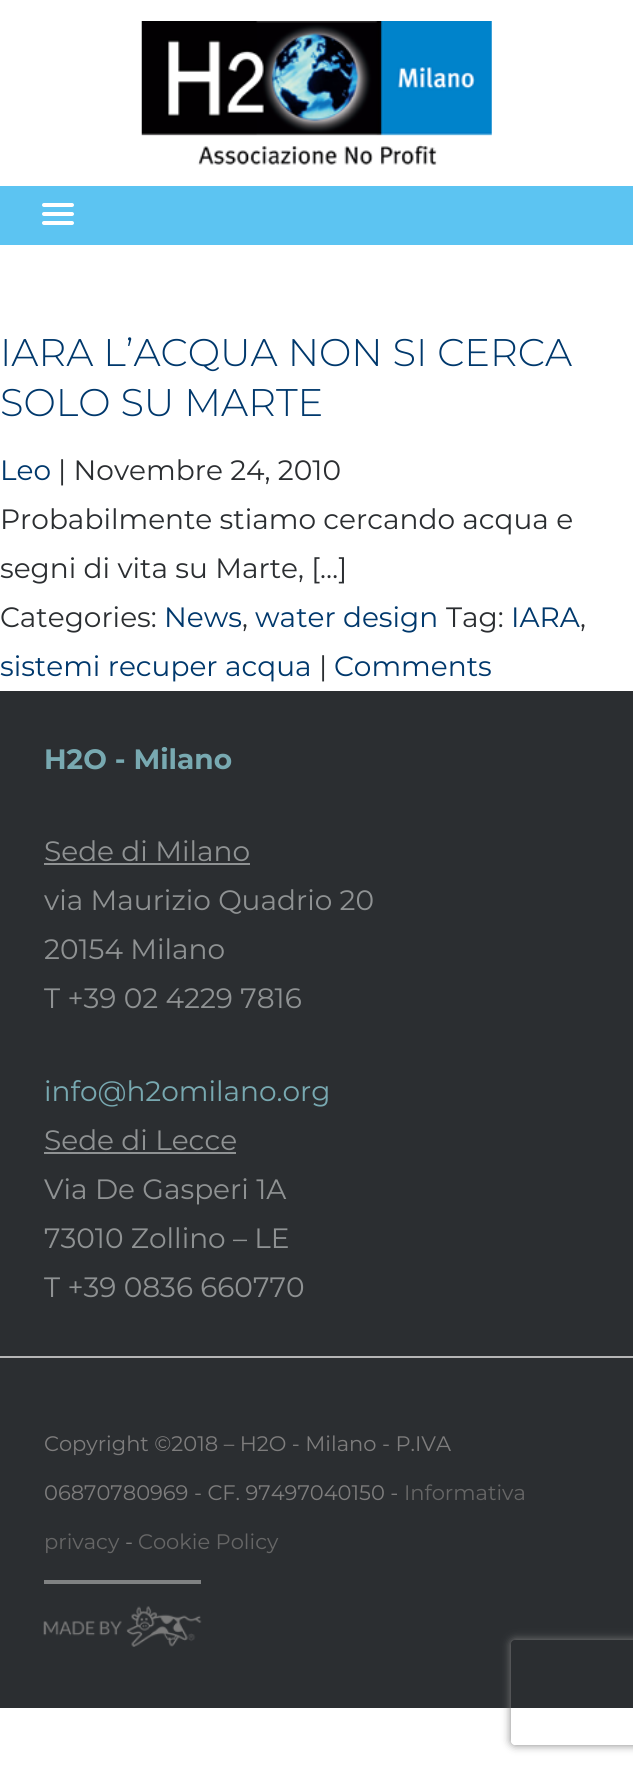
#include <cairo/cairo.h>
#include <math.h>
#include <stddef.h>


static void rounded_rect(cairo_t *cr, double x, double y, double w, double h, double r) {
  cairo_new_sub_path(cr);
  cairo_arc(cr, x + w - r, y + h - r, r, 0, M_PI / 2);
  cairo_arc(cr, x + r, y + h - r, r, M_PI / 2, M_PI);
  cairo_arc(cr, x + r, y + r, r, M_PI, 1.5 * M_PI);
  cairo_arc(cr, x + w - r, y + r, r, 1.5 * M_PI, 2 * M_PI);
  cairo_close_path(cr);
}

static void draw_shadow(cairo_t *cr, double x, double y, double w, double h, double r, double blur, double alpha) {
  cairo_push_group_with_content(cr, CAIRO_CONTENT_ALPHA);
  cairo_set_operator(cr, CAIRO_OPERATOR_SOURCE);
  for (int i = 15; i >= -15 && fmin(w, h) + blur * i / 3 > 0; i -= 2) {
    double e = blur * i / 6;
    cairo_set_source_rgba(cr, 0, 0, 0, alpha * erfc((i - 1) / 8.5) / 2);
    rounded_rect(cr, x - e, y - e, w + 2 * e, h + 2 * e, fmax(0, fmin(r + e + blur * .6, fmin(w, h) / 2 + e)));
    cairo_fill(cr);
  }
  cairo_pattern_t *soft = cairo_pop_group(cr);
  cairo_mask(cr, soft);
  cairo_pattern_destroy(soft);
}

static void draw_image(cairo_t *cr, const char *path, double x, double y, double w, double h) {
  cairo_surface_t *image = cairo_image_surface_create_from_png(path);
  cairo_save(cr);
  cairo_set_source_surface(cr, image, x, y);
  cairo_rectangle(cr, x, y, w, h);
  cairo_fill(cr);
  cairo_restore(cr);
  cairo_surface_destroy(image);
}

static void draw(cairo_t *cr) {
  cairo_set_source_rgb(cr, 1, 1, 1);
  cairo_paint(cr);
  draw_image(cr, "images/1.png", 141, 21, 351, 144);
  cairo_set_source_rgb(cr, 92 / 255.0, 196 / 255.0, 242 / 255.0);
  cairo_rectangle(cr, 0, 186, 633, 59);
  cairo_fill(cr);
  cairo_set_source_rgb(cr, 1, 1, 1);
  rounded_rect(cr, 42, 203, 32, 4, 2);
  cairo_fill(cr);
  rounded_rect(cr, 42, 212, 32, 4, 2);
  cairo_fill(cr);
  rounded_rect(cr, 42, 221, 32, 4, 2);
  cairo_fill(cr);
  cairo_set_source_rgb(cr, 43 / 255.0, 46 / 255.0, 49 / 255.0);
  cairo_rectangle(cr, 0, 691, 633, 665);
  cairo_fill(cr);
  cairo_set_source_rgb(cr, 143 / 255.0, 146 / 255.0, 147 / 255.0);
  cairo_rectangle(cr, 44, 863, 206, 2);
  cairo_fill(cr);
  cairo_rectangle(cr, 44, 1152, 192, 2);
  cairo_fill(cr);
  cairo_set_source_rgb(cr, 43 / 255.0, 46 / 255.0, 49 / 255.0);
  cairo_rectangle(cr, 0, 1358, 633, 350);
  cairo_fill(cr);
  cairo_set_source_rgb(cr, 181 / 255.0, 181 / 255.0, 181 / 255.0);
  cairo_rectangle(cr, 0, 1356, 633, 2);
  cairo_fill(cr);
  cairo_set_source_rgb(cr, 128 / 255.0, 130 / 255.0, 131 / 255.0);
  cairo_rectangle(cr, 44, 1580, 157, 4);
  cairo_fill(cr);
  draw_image(cr, "images/2.png", 43, 1606, 159, 41);
  cairo_save(cr);
  cairo_set_fill_rule(cr, CAIRO_FILL_RULE_EVEN_ODD);
  cairo_new_path(cr);
  cairo_move_to(cr, 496, 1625);
  cairo_line_to(cr, 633, 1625);
  cairo_line_to(cr, 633, 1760);
  cairo_line_to(cr, 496, 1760);
  cairo_close_path(cr);
  cairo_move_to(cr, 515, 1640);
  cairo_line_to(cr, 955, 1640);
  cairo_curve_to(cr, 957, 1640, 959, 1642, 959, 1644);
  cairo_line_to(cr, 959, 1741);
  cairo_curve_to(cr, 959, 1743, 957, 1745, 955, 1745);
  cairo_line_to(cr, 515, 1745);
  cairo_curve_to(cr, 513, 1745, 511, 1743, 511, 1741);
  cairo_line_to(cr, 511, 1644);
  cairo_curve_to(cr, 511, 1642, 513, 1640, 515, 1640);
  cairo_close_path(cr);
  cairo_clip(cr);
  cairo_set_source_rgb(cr, 128 / 255.0, 128 / 255.0, 128 / 255.0);
  draw_shadow(cr, 511, 1640, 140, 105, 4, 4.5, 1);
  cairo_restore(cr);
  cairo_select_font_face(cr, "Montserrat Light", CAIRO_FONT_SLANT_NORMAL, CAIRO_FONT_WEIGHT_NORMAL);
  cairo_set_font_size(cr, 38.5);
  cairo_set_source_rgb(cr, 0, 56 / 255.0, 108 / 255.0);
  cairo_move_to(cr, 0, 366);
  cairo_show_text(cr, "IARA L’ACQUA NON SI CERCA");
  cairo_move_to(cr, 0, 416);
  cairo_show_text(cr, "SOLO SU MARTE");
  cairo_select_font_face(cr, "Montserrat", CAIRO_FONT_SLANT_NORMAL, CAIRO_FONT_WEIGHT_NORMAL);
  cairo_set_font_size(cr, 28);
  cairo_move_to(cr, 0, 480);
  cairo_show_text(cr, "Leo");
  cairo_set_source_rgb(cr, 43 / 255.0, 46 / 255.0, 49 / 255.0);
  cairo_move_to(cr, 58, 480);
  cairo_show_text(cr, "| Novembre 24, 2010");
  cairo_move_to(cr, 0, 529);
  cairo_show_text(cr, "Probabilmente stiamo cercando acqua e");
  cairo_move_to(cr, 0, 578);
  cairo_show_text(cr, "segni di vita su Marte, […]");
  cairo_move_to(cr, 0, 627);
  cairo_show_text(cr, "Categories:");
  cairo_set_source_rgb(cr, 0, 56 / 255.0, 108 / 255.0);
  cairo_move_to(cr, 164, 627);
  cairo_show_text(cr, "News");
  cairo_move_to(cr, 255, 627);
  cairo_show_text(cr, "water design");
  cairo_set_source_rgb(cr, 43 / 255.0, 46 / 255.0, 49 / 255.0);
  cairo_move_to(cr, 446, 627);
  cairo_show_text(cr, "Tag:");
  cairo_set_source_rgb(cr, 0, 56 / 255.0, 108 / 255.0);
  cairo_move_to(cr, 511, 627);
  cairo_show_text(cr, "IARA");
  cairo_set_source_rgb(cr, 43 / 255.0, 46 / 255.0, 49 / 255.0);
  cairo_move_to(cr, 242, 627);
  cairo_show_text(cr, ",");
  cairo_move_to(cr, 580, 627);
  cairo_show_text(cr, ",");
  cairo_set_source_rgb(cr, 0, 56 / 255.0, 108 / 255.0);
  cairo_move_to(cr, 0, 676);
  cairo_show_text(cr, "sistemi recuper acqua");
  cairo_set_source_rgb(cr, 43 / 255.0, 46 / 255.0, 49 / 255.0);
  cairo_move_to(cr, 319, 676);
  cairo_show_text(cr, "|");
  cairo_set_source_rgb(cr, 0, 56 / 255.0, 108 / 255.0);
  cairo_move_to(cr, 334, 676);
  cairo_show_text(cr, "Comments");
  cairo_select_font_face(cr, "Montserrat", CAIRO_FONT_SLANT_NORMAL, CAIRO_FONT_WEIGHT_BOLD);
  cairo_set_source_rgb(cr, 120 / 255.0, 169 / 255.0, 177 / 255.0);
  cairo_move_to(cr, 44, 769);
  cairo_show_text(cr, "H2O - Milano");
  cairo_select_font_face(cr, "Montserrat", CAIRO_FONT_SLANT_NORMAL, CAIRO_FONT_WEIGHT_NORMAL);
  cairo_set_source_rgb(cr, 143 / 255.0, 146 / 255.0, 147 / 255.0);
  cairo_move_to(cr, 44, 861);
  cairo_show_text(cr, "Sede di Milano");
  cairo_move_to(cr, 44, 910);
  cairo_show_text(cr, "via Maurizio Quadrio 20");
  cairo_move_to(cr, 44, 959);
  cairo_show_text(cr, "20154 Milano");
  cairo_move_to(cr, 44, 1008);
  cairo_show_text(cr, "T +39 02 4229 7816");
  cairo_set_source_rgb(cr, 120 / 255.0, 169 / 255.0, 177 / 255.0);
  cairo_move_to(cr, 44, 1101);
  cairo_show_text(cr, "info@h2omilano.org");
  cairo_set_source_rgb(cr, 143 / 255.0, 146 / 255.0, 147 / 255.0);
  cairo_move_to(cr, 44, 1150);
  cairo_show_text(cr, "Sede di Lecce");
  cairo_move_to(cr, 44, 1199);
  cairo_show_text(cr, "Via De Gasperi 1A");
  cairo_move_to(cr, 44, 1248);
  cairo_show_text(cr, "73010 Zollino – LE");
  cairo_move_to(cr, 44, 1297);
  cairo_show_text(cr, "T +39 0836 660770");
  cairo_set_font_size(cr, 21);
  cairo_set_source_rgb(cr, 126 / 255.0, 125 / 255.0, 125 / 255.0);
  cairo_move_to(cr, 44, 1451);
  cairo_show_text(cr, "Copyright ©2018 – H2O - Milano - P.IVA");
  cairo_move_to(cr, 44, 1500);
  cairo_show_text(cr, "06870780969 - CF. 97497040150 -");
  cairo_set_source_rgb(cr, 102 / 255.0, 102 / 255.0, 102 / 255.0);
  cairo_move_to(cr, 404, 1500);
  cairo_show_text(cr, "Informativa");
  cairo_move_to(cr, 44, 1549);
  cairo_show_text(cr, "privacy");
  cairo_set_source_rgb(cr, 126 / 255.0, 125 / 255.0, 125 / 255.0);
  cairo_move_to(cr, 125, 1549);
  cairo_show_text(cr, "-");
  cairo_set_source_rgb(cr, 102 / 255.0, 102 / 255.0, 102 / 255.0);
  cairo_move_to(cr, 138, 1549);
  cairo_show_text(cr, "Cookie Policy");
}

int main(void) {
  cairo_surface_t *surface = cairo_image_surface_create(CAIRO_FORMAT_RGB24, 633, 1769);
  cairo_t *cr = cairo_create(surface);
  cairo_font_options_t *options = cairo_font_options_create();
  cairo_font_options_set_hint_metrics(options, CAIRO_HINT_METRICS_OFF);
  cairo_font_options_set_hint_style(options, CAIRO_HINT_STYLE_NONE);
  cairo_set_font_options(cr, options);
  cairo_set_miter_limit(cr, 4);
  draw(cr);
  cairo_surface_write_to_png(surface, "out.png");
  cairo_font_options_destroy(options);
  cairo_destroy(cr);
  cairo_surface_destroy(surface);
  return 0;
}
